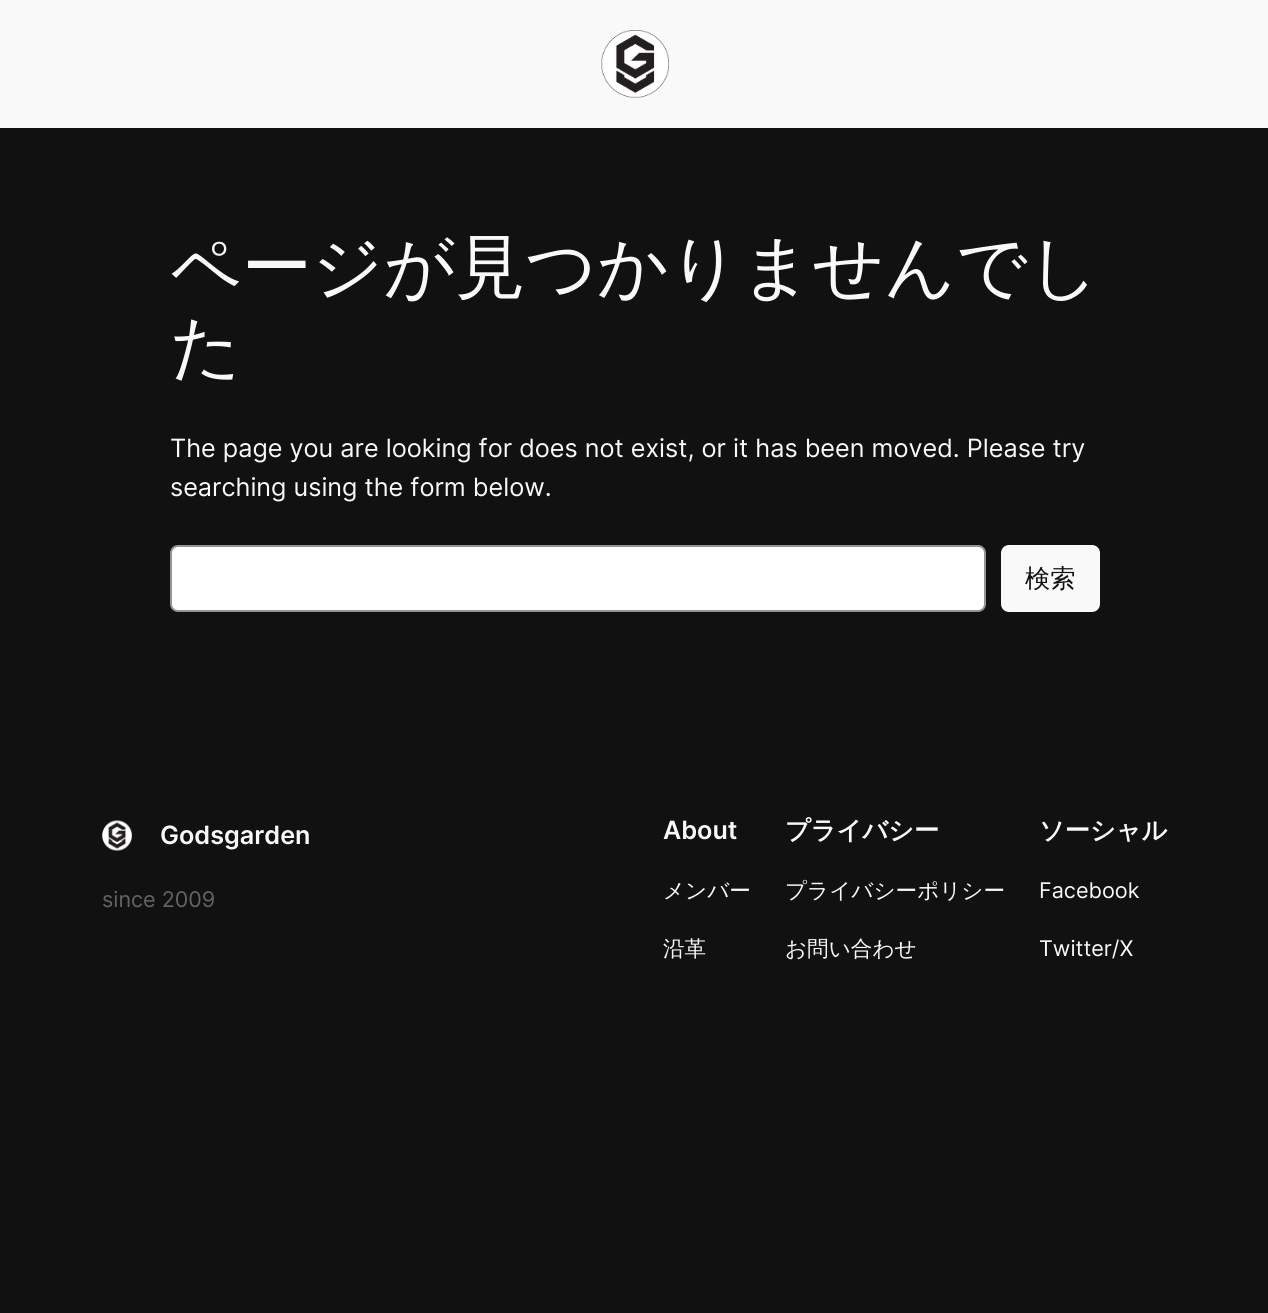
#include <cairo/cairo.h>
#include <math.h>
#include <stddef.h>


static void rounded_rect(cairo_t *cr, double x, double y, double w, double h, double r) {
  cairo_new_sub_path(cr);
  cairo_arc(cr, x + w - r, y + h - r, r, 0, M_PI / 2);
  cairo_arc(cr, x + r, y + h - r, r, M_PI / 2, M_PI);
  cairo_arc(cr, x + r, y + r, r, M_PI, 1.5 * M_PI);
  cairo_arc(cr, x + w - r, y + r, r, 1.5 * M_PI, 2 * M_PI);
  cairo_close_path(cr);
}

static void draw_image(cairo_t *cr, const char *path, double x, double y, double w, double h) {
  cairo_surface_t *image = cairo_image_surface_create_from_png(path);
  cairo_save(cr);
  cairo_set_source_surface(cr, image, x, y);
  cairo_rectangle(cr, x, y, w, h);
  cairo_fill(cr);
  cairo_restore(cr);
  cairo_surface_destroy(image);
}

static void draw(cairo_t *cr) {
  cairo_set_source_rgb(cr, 17 / 255.0, 17 / 255.0, 17 / 255.0);
  cairo_paint(cr);
  cairo_set_source_rgb(cr, 249 / 255.0, 249 / 255.0, 249 / 255.0);
  cairo_rectangle(cr, 0, 0, 1268, 128);
  cairo_fill(cr);
  draw_image(cr, "images/1.png", 601, 30, 68, 68);
  cairo_set_source_rgb(cr, 1, 1, 1);
  rounded_rect(cr, 171, 546, 814, 65, 7);
  cairo_fill_preserve(cr);
  cairo_set_source_rgb(cr, 148 / 255.0, 148 / 255.0, 148 / 255.0);
  cairo_stroke(cr);
  cairo_set_source_rgb(cr, 249 / 255.0, 249 / 255.0, 249 / 255.0);
  rounded_rect(cr, 1001, 545, 99, 67, 8);
  cairo_fill(cr);
  draw_image(cr, "images/2.png", 102, 820, 30, 31);
  cairo_select_font_face(cr, "WenQuanYi Zen Hei Medium", CAIRO_FONT_SLANT_NORMAL, CAIRO_FONT_WEIGHT_NORMAL);
  cairo_set_font_size(cr, 70.1);
  cairo_move_to(cr, 170, 291);
  cairo_show_text(cr, "ページが見つかりませんでし");
  cairo_move_to(cr, 170, 371);
  cairo_show_text(cr, "た");
  cairo_select_font_face(cr, "Inter", CAIRO_FONT_SLANT_NORMAL, CAIRO_FONT_WEIGHT_NORMAL);
  cairo_set_font_size(cr, 25.2);
  cairo_move_to(cr, 170, 457);
  cairo_show_text(cr, "The page you are looking for does not exist, or it has been moved. Please try");
  cairo_move_to(cr, 170, 496);
  cairo_show_text(cr, "searching using the form below.");
  cairo_select_font_face(cr, "WenQuanYi Zen Hei Medium", CAIRO_FONT_SLANT_NORMAL, CAIRO_FONT_WEIGHT_NORMAL);
  cairo_set_source_rgb(cr, 17 / 255.0, 17 / 255.0, 17 / 255.0);
  cairo_move_to(cr, 1025, 587);
  cairo_show_text(cr, "検索");
  cairo_select_font_face(cr, "Inter SemiBold", CAIRO_FONT_SLANT_NORMAL, CAIRO_FONT_WEIGHT_NORMAL);
  cairo_set_source_rgb(cr, 249 / 255.0, 249 / 255.0, 249 / 255.0);
  cairo_move_to(cr, 160, 844);
  cairo_show_text(cr, "Godsgarden");
  cairo_select_font_face(cr, "Inter", CAIRO_FONT_SLANT_NORMAL, CAIRO_FONT_WEIGHT_NORMAL);
  cairo_set_font_size(cr, 21.6);
  cairo_set_source_rgb(cr, 99 / 255.0, 99 / 255.0, 99 / 255.0);
  cairo_move_to(cr, 102, 907);
  cairo_show_text(cr, "since 2009");
  cairo_select_font_face(cr, "Inter SemiBold", CAIRO_FONT_SLANT_NORMAL, CAIRO_FONT_WEIGHT_NORMAL);
  cairo_set_font_size(cr, 25.2);
  cairo_set_source_rgb(cr, 249 / 255.0, 249 / 255.0, 249 / 255.0);
  cairo_move_to(cr, 663, 839);
  cairo_show_text(cr, "About");
  cairo_select_font_face(cr, "WenQuanYi Zen Hei Medium", CAIRO_FONT_SLANT_NORMAL, CAIRO_FONT_WEIGHT_NORMAL);
  cairo_set_font_size(cr, 21.6);
  cairo_move_to(cr, 663, 898);
  cairo_show_text(cr, "メンバー");
  cairo_move_to(cr, 663, 956);
  cairo_show_text(cr, "沿革");
  cairo_select_font_face(cr, "WenQuanYi Zen Hei", CAIRO_FONT_SLANT_NORMAL, CAIRO_FONT_WEIGHT_BOLD);
  cairo_set_font_size(cr, 25.2);
  cairo_move_to(cr, 785, 839);
  cairo_show_text(cr, "プライバシー");
  cairo_select_font_face(cr, "WenQuanYi Zen Hei Medium", CAIRO_FONT_SLANT_NORMAL, CAIRO_FONT_WEIGHT_NORMAL);
  cairo_set_font_size(cr, 21.6);
  cairo_move_to(cr, 785, 898);
  cairo_show_text(cr, "プライバシーポリシー");
  cairo_move_to(cr, 785, 956);
  cairo_show_text(cr, "お問い合わせ");
  cairo_select_font_face(cr, "WenQuanYi Zen Hei", CAIRO_FONT_SLANT_NORMAL, CAIRO_FONT_WEIGHT_BOLD);
  cairo_set_font_size(cr, 25.2);
  cairo_move_to(cr, 1039, 839);
  cairo_show_text(cr, "ソーシャル");
  cairo_select_font_face(cr, "Inter", CAIRO_FONT_SLANT_NORMAL, CAIRO_FONT_WEIGHT_NORMAL);
  cairo_set_font_size(cr, 21.6);
  cairo_move_to(cr, 1039, 898);
  cairo_show_text(cr, "Facebook");
  cairo_move_to(cr, 1039, 956);
  cairo_show_text(cr, "Twitter/X");
}

int main(void) {
  cairo_surface_t *surface = cairo_image_surface_create(CAIRO_FORMAT_RGB24, 1268, 1313);
  cairo_t *cr = cairo_create(surface);
  cairo_font_options_t *options = cairo_font_options_create();
  cairo_font_options_set_hint_metrics(options, CAIRO_HINT_METRICS_OFF);
  cairo_font_options_set_hint_style(options, CAIRO_HINT_STYLE_NONE);
  cairo_set_font_options(cr, options);
  cairo_set_miter_limit(cr, 4);
  draw(cr);
  cairo_surface_write_to_png(surface, "out.png");
  cairo_font_options_destroy(options);
  cairo_destroy(cr);
  cairo_surface_destroy(surface);
  return 0;
}
